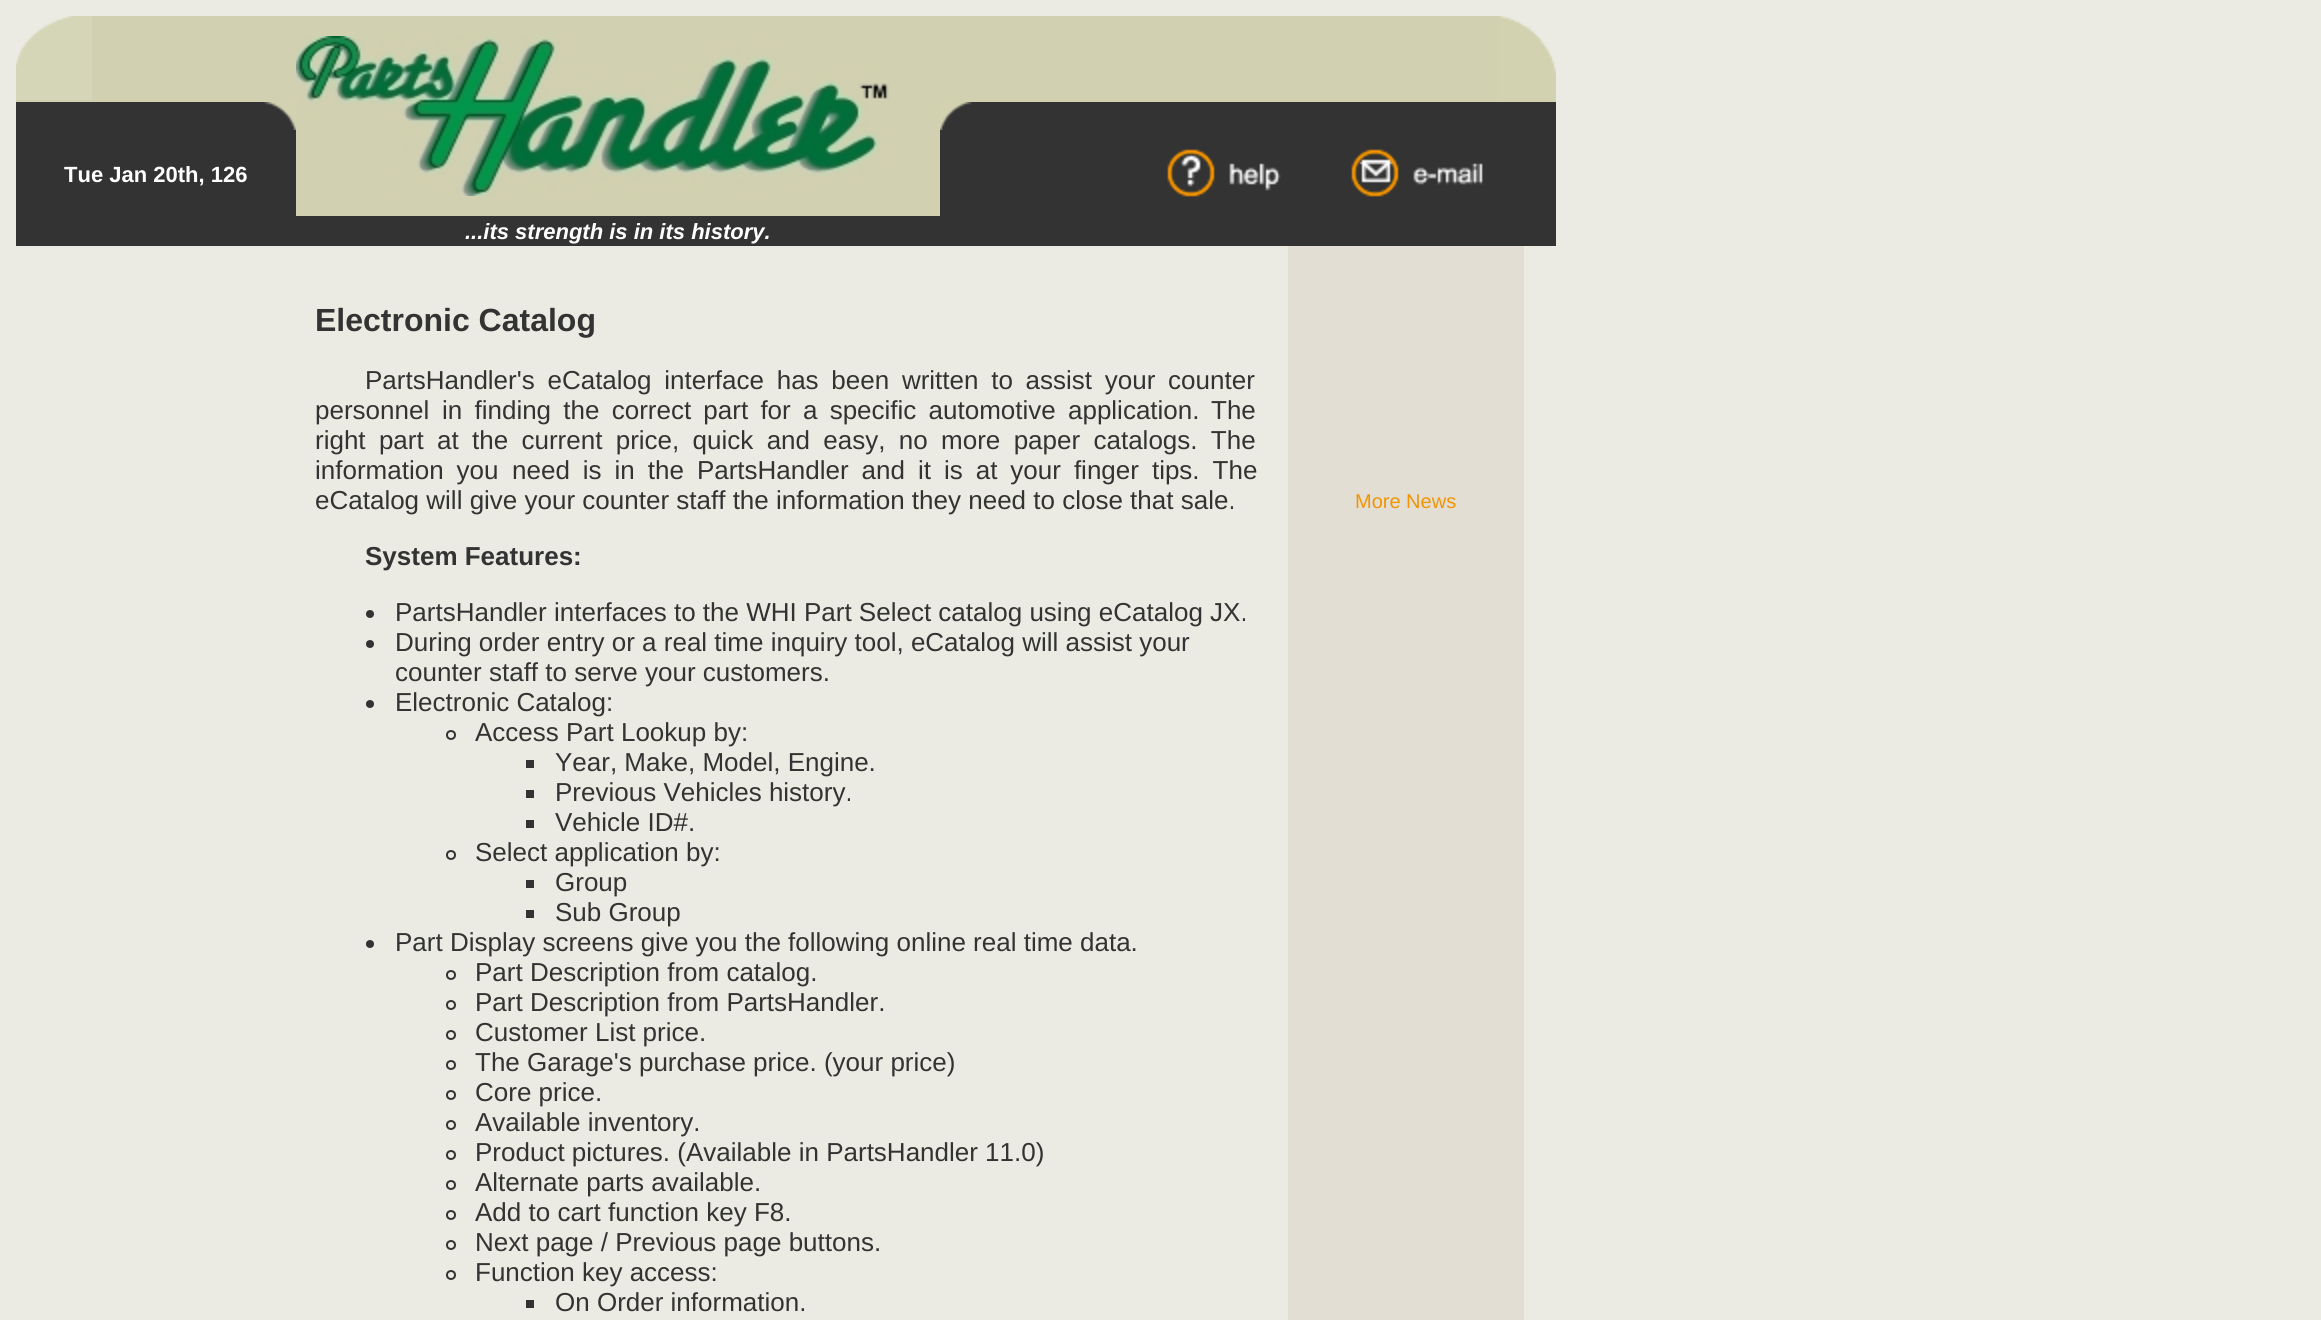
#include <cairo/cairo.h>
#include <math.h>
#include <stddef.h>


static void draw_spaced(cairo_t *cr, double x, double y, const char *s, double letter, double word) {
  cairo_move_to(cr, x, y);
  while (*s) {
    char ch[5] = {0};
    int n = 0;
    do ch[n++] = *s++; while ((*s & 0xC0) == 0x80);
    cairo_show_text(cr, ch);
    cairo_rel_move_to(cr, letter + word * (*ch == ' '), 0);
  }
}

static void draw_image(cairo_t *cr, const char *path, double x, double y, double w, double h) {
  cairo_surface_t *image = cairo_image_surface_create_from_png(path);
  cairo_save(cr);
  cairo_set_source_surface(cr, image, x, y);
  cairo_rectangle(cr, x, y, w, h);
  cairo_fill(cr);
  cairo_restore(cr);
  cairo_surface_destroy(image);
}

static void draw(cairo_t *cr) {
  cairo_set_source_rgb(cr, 235 / 255.0, 235 / 255.0, 227 / 255.0);
  cairo_paint(cr);
  cairo_set_source_rgb(cr, 209 / 255.0, 209 / 255.0, 177 / 255.0);
  cairo_rectangle(cr, 16, 16, 280, 86);
  cairo_fill(cr);
  draw_image(cr, "images/1.png", 16, 16, 76, 84);
  cairo_rectangle(cr, 296, 16, 644, 200);
  cairo_fill(cr);
  draw_image(cr, "images/2.png", 296, 36, 593, 160);
  cairo_rectangle(cr, 940, 16, 616, 86);
  cairo_fill(cr);
  draw_image(cr, "images/3.png", 1498, 16, 58, 84);
  cairo_set_source_rgb(cr, 51 / 255.0, 51 / 255.0, 51 / 255.0);
  cairo_rectangle(cr, 16, 102, 32, 144);
  cairo_fill(cr);
  cairo_rectangle(cr, 48, 102, 216, 144);
  cairo_fill(cr);
  cairo_rectangle(cr, 264, 130, 32, 116);
  cairo_fill(cr);
  draw_image(cr, "images/4.png", 264, 102, 32, 28);
  cairo_rectangle(cr, 940, 130, 32, 86);
  cairo_fill(cr);
  draw_image(cr, "images/5.png", 940, 102, 32, 28);
  cairo_rectangle(cr, 972, 102, 552, 144);
  cairo_fill(cr);
  draw_image(cr, "images/6.png", 1167, 149, 114, 48);
  draw_image(cr, "images/7.png", 1351, 149, 132, 48);
  cairo_rectangle(cr, 1524, 102, 32, 144);
  cairo_fill(cr);
  cairo_rectangle(cr, 296, 216, 676, 30);
  cairo_fill(cr);
  cairo_arc(cr, 370, 614, 4, 0, 2 * M_PI);
  cairo_fill(cr);
  cairo_arc(cr, 370, 644, 4, 0, 2 * M_PI);
  cairo_fill(cr);
  cairo_arc(cr, 370, 704, 4, 0, 2 * M_PI);
  cairo_fill(cr);
  cairo_arc(cr, 451, 735, 4, 0, 2 * M_PI);
  cairo_stroke(cr);
  cairo_rectangle(cr, 526, 760, 8, 8);
  cairo_fill(cr);
  cairo_rectangle(cr, 526, 790, 8, 8);
  cairo_fill(cr);
  cairo_rectangle(cr, 526, 820, 8, 8);
  cairo_fill(cr);
  cairo_arc(cr, 451, 855, 4, 0, 2 * M_PI);
  cairo_stroke(cr);
  cairo_rectangle(cr, 526, 880, 8, 8);
  cairo_fill(cr);
  cairo_rectangle(cr, 526, 910, 8, 8);
  cairo_fill(cr);
  cairo_arc(cr, 370, 944, 4, 0, 2 * M_PI);
  cairo_fill(cr);
  cairo_arc(cr, 451, 975, 4, 0, 2 * M_PI);
  cairo_stroke(cr);
  cairo_arc(cr, 451, 1005, 4, 0, 2 * M_PI);
  cairo_stroke(cr);
  cairo_arc(cr, 451, 1035, 4, 0, 2 * M_PI);
  cairo_stroke(cr);
  cairo_arc(cr, 451, 1065, 4, 0, 2 * M_PI);
  cairo_stroke(cr);
  cairo_arc(cr, 451, 1095, 4, 0, 2 * M_PI);
  cairo_stroke(cr);
  cairo_arc(cr, 451, 1125, 4, 0, 2 * M_PI);
  cairo_stroke(cr);
  cairo_arc(cr, 451, 1155, 4, 0, 2 * M_PI);
  cairo_stroke(cr);
  cairo_arc(cr, 451, 1185, 4, 0, 2 * M_PI);
  cairo_stroke(cr);
  cairo_arc(cr, 451, 1215, 4, 0, 2 * M_PI);
  cairo_stroke(cr);
  cairo_arc(cr, 451, 1245, 4, 0, 2 * M_PI);
  cairo_stroke(cr);
  cairo_arc(cr, 451, 1275, 4, 0, 2 * M_PI);
  cairo_stroke(cr);
  cairo_rectangle(cr, 526, 1300, 8, 8);
  cairo_fill(cr);
  cairo_set_source_rgb(cr, 226 / 255.0, 222 / 255.0, 212 / 255.0);
  cairo_rectangle(cr, 1288, 246, 236, 1074);
  cairo_fill(cr);
  cairo_select_font_face(cr, "Liberation Sans", CAIRO_FONT_SLANT_NORMAL, CAIRO_FONT_WEIGHT_BOLD);
  cairo_set_font_size(cr, 22);
  cairo_set_source_rgb(cr, 1, 1, 1);
  cairo_move_to(cr, 64, 182);
  cairo_show_text(cr, "Tue Jan 20th, 126");
  cairo_select_font_face(cr, "Liberation Sans", CAIRO_FONT_SLANT_ITALIC, CAIRO_FONT_WEIGHT_BOLD);
  cairo_move_to(cr, 465, 239);
  cairo_show_text(cr, "...its strength is in its history.");
  cairo_select_font_face(cr, "Liberation Sans", CAIRO_FONT_SLANT_NORMAL, CAIRO_FONT_WEIGHT_BOLD);
  cairo_set_font_size(cr, 32);
  cairo_set_source_rgb(cr, 51 / 255.0, 51 / 255.0, 51 / 255.0);
  cairo_move_to(cr, 315, 331);
  cairo_show_text(cr, "Electronic Catalog");
  cairo_select_font_face(cr, "Liberation Sans", CAIRO_FONT_SLANT_NORMAL, CAIRO_FONT_WEIGHT_NORMAL);
  cairo_set_font_size(cr, 26);
  draw_spaced(cr, 365, 389, "PartsHandler's eCatalog interface has been written to assist your counter", 0, 5.5);
  cairo_move_to(cr, 315, 419);
  cairo_show_text(cr, "personnel");
  draw_spaced(cr, 442, 419, "in finding the correct part for a specific automotive application.", 0, 5);
  cairo_move_to(cr, 1211, 419);
  cairo_show_text(cr, "The");
  draw_spaced(cr, 315, 449, "right part", 0, 6.1);
  draw_spaced(cr, 437, 449, "at the current price, quick and easy, no more paper catalogs. The", 0, 6.1);
  draw_spaced(cr, 315, 479, "information you", 0, 5.75);
  draw_spaced(cr, 512, 479, "need is in the PartsHandler and it is at your finger tips. The", 0, 5.75);
  cairo_move_to(cr, 315, 509);
  cairo_show_text(cr, "eCatalog will give your counter staff the information they need to close that sale.");
  cairo_select_font_face(cr, "Liberation Sans", CAIRO_FONT_SLANT_NORMAL, CAIRO_FONT_WEIGHT_BOLD);
  cairo_move_to(cr, 365, 565);
  cairo_show_text(cr, "System Features:");
  cairo_select_font_face(cr, "Liberation Sans", CAIRO_FONT_SLANT_NORMAL, CAIRO_FONT_WEIGHT_NORMAL);
  cairo_move_to(cr, 395, 621);
  cairo_show_text(cr, "PartsHandler interfaces to the WHI Part Select catalog using eCatalog JX.");
  cairo_move_to(cr, 395, 651);
  cairo_show_text(cr, "During order entry or a real time inquiry tool, eCatalog will assist your");
  cairo_move_to(cr, 395, 681);
  cairo_show_text(cr, "counter staff to serve your customers.");
  cairo_move_to(cr, 395, 711);
  cairo_show_text(cr, "Electronic Catalog:");
  cairo_move_to(cr, 475, 741);
  cairo_show_text(cr, "Access Part Lookup by:");
  cairo_move_to(cr, 555, 771);
  cairo_show_text(cr, "Year, Make, Model, Engine.");
  cairo_move_to(cr, 555, 801);
  cairo_show_text(cr, "Previous Vehicles history.");
  cairo_move_to(cr, 555, 831);
  cairo_show_text(cr, "Vehicle ID#.");
  cairo_move_to(cr, 475, 861);
  cairo_show_text(cr, "Select application by:");
  cairo_move_to(cr, 555, 891);
  cairo_show_text(cr, "Group");
  cairo_move_to(cr, 555, 921);
  cairo_show_text(cr, "Sub Group");
  cairo_move_to(cr, 395, 951);
  cairo_show_text(cr, "Part Display screens give you the following online real time data.");
  cairo_move_to(cr, 475, 981);
  cairo_show_text(cr, "Part Description from catalog.");
  cairo_move_to(cr, 475, 1011);
  cairo_show_text(cr, "Part Description from PartsHandler.");
  cairo_move_to(cr, 475, 1041);
  cairo_show_text(cr, "Customer List price.");
  cairo_move_to(cr, 475, 1071);
  cairo_show_text(cr, "The Garage's purchase price. (your price)");
  cairo_move_to(cr, 475, 1101);
  cairo_show_text(cr, "Core price.");
  cairo_move_to(cr, 475, 1131);
  cairo_show_text(cr, "Available inventory.");
  cairo_move_to(cr, 475, 1161);
  cairo_show_text(cr, "Product pictures. (Available in PartsHandler 11.0)");
  cairo_move_to(cr, 475, 1191);
  cairo_show_text(cr, "Alternate parts available.");
  cairo_move_to(cr, 475, 1221);
  cairo_show_text(cr, "Add to cart function key F8.");
  cairo_move_to(cr, 475, 1251);
  cairo_show_text(cr, "Next page / Previous page buttons.");
  cairo_move_to(cr, 475, 1281);
  cairo_show_text(cr, "Function key access:");
  cairo_move_to(cr, 555, 1311);
  cairo_show_text(cr, "On Order information.");
  cairo_set_font_size(cr, 20);
  cairo_set_source_rgb(cr, 241 / 255.0, 149 / 255.0, 3 / 255.0);
  cairo_move_to(cr, 1355, 508);
  cairo_show_text(cr, "More News");
}

int main(void) {
  cairo_surface_t *surface = cairo_image_surface_create(CAIRO_FORMAT_RGB24, 2321, 1320);
  cairo_t *cr = cairo_create(surface);
  cairo_font_options_t *options = cairo_font_options_create();
  cairo_font_options_set_hint_metrics(options, CAIRO_HINT_METRICS_OFF);
  cairo_font_options_set_hint_style(options, CAIRO_HINT_STYLE_NONE);
  cairo_set_font_options(cr, options);
  cairo_set_miter_limit(cr, 4);
  draw(cr);
  cairo_surface_write_to_png(surface, "out.png");
  cairo_font_options_destroy(options);
  cairo_destroy(cr);
  cairo_surface_destroy(surface);
  return 0;
}
